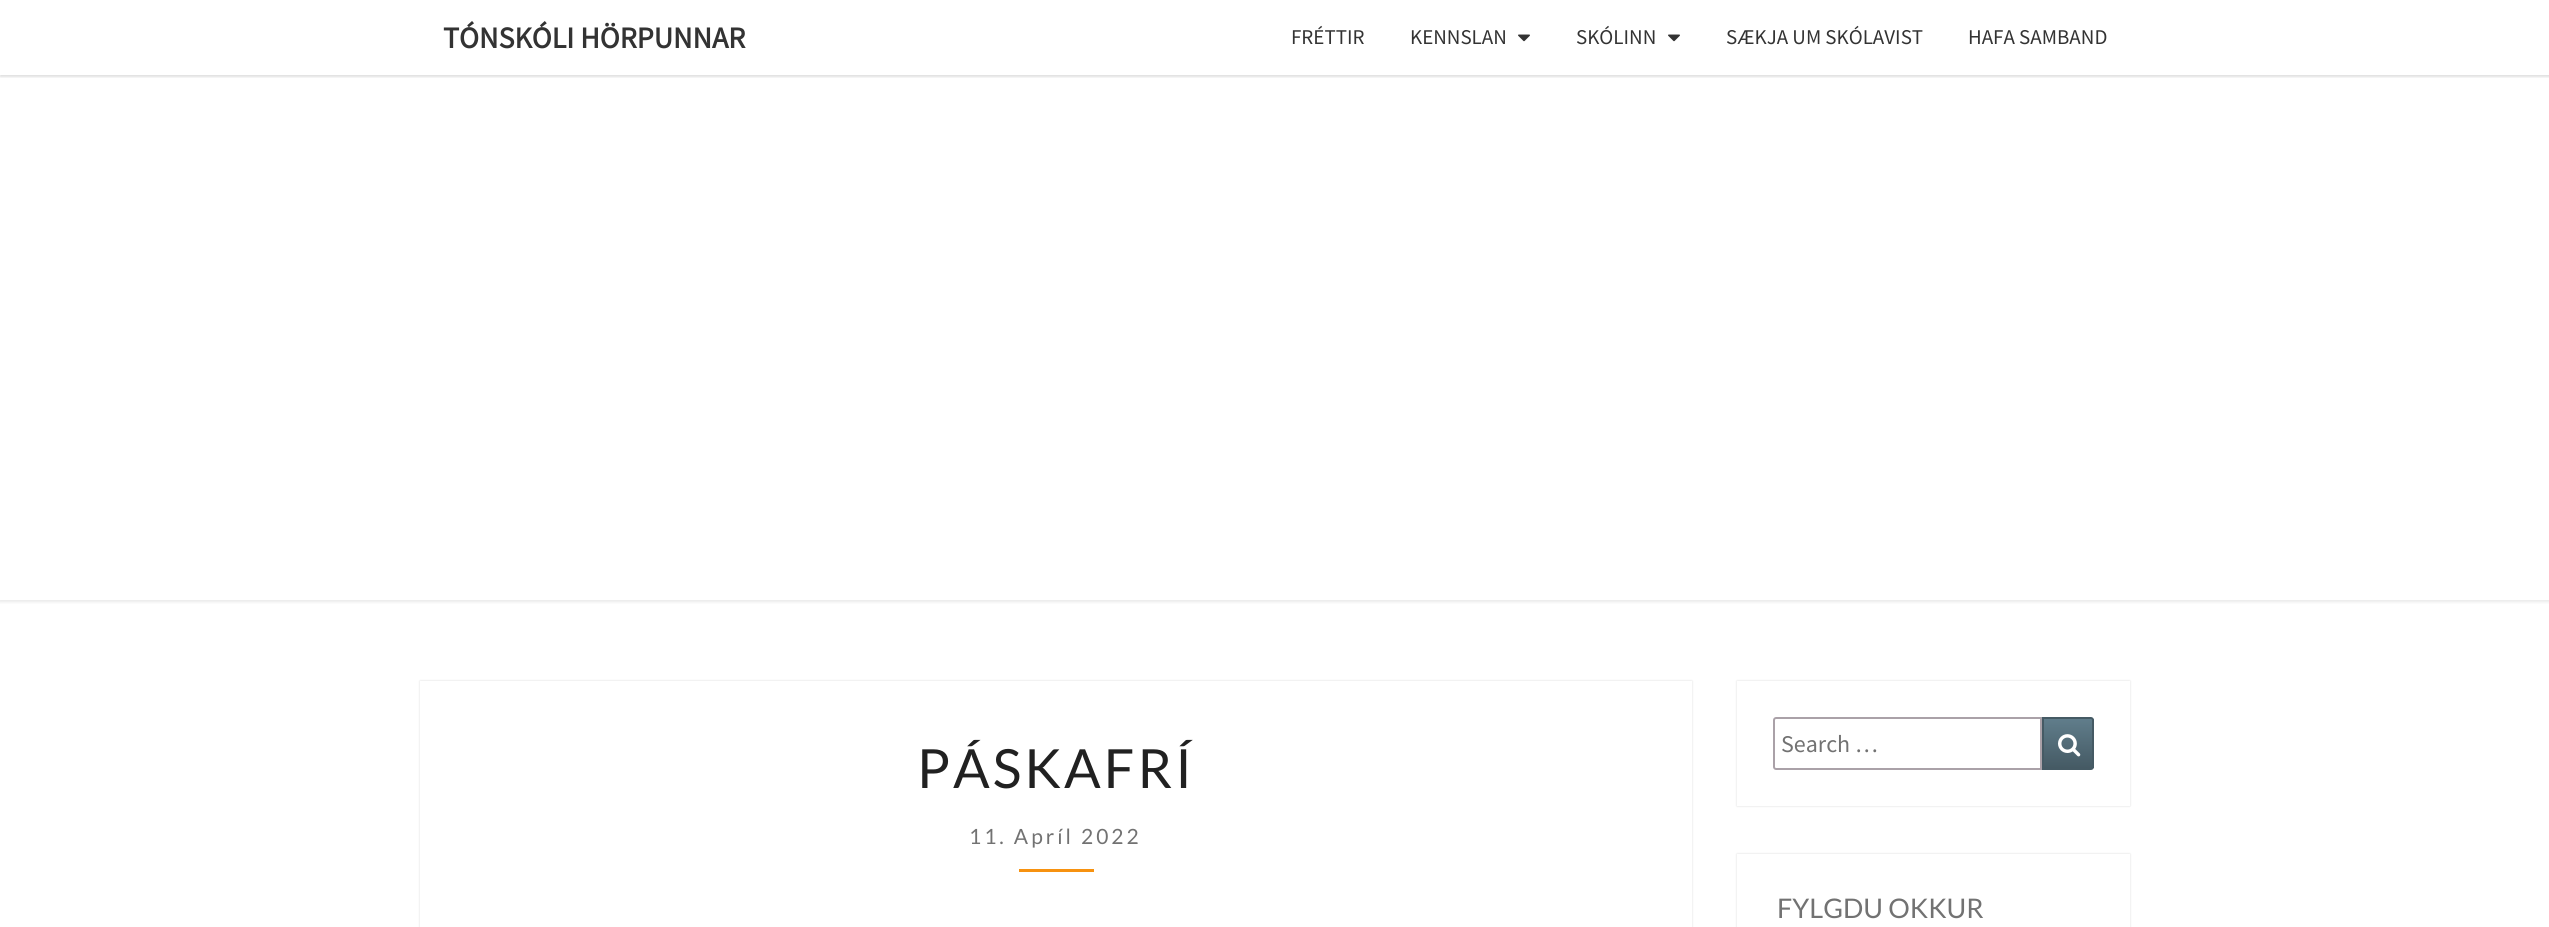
#include <cairo/cairo.h>
#include <math.h>
#include <stddef.h>


static void draw_spaced(cairo_t *cr, double x, double y, const char *s, double letter, double word) {
  cairo_move_to(cr, x, y);
  while (*s) {
    char ch[5] = {0};
    int n = 0;
    do ch[n++] = *s++; while ((*s & 0xC0) == 0x80);
    cairo_show_text(cr, ch);
    cairo_rel_move_to(cr, letter + word * (*ch == ' '), 0);
  }
}

static void rounded_rect(cairo_t *cr, double x, double y, double w, double h, double r) {
  cairo_new_sub_path(cr);
  cairo_arc(cr, x + w - r, y + h - r, r, 0, M_PI / 2);
  cairo_arc(cr, x + r, y + h - r, r, M_PI / 2, M_PI);
  cairo_arc(cr, x + r, y + r, r, M_PI, 1.5 * M_PI);
  cairo_arc(cr, x + w - r, y + r, r, 1.5 * M_PI, 2 * M_PI);
  cairo_close_path(cr);
}

static void draw_shadow(cairo_t *cr, double x, double y, double w, double h, double r, double blur, double alpha) {
  cairo_push_group_with_content(cr, CAIRO_CONTENT_ALPHA);
  cairo_set_operator(cr, CAIRO_OPERATOR_SOURCE);
  for (int i = 15; i >= -15 && fmin(w, h) + blur * i / 3 > 0; i -= 2) {
    double e = blur * i / 6;
    cairo_set_source_rgba(cr, 0, 0, 0, alpha * erfc((i - 1) / 8.5) / 2);
    rounded_rect(cr, x - e, y - e, w + 2 * e, h + 2 * e, fmax(0, fmin(r + e + blur * .6, fmin(w, h) / 2 + e)));
    cairo_fill(cr);
  }
  cairo_pattern_t *soft = cairo_pop_group(cr);
  cairo_mask(cr, soft);
  cairo_pattern_destroy(soft);
}

static void draw_image(cairo_t *cr, const char *path, double x, double y, double w, double h) {
  cairo_surface_t *image = cairo_image_surface_create_from_png(path);
  cairo_save(cr);
  cairo_set_source_surface(cr, image, x, y);
  cairo_rectangle(cr, x, y, w, h);
  cairo_fill(cr);
  cairo_restore(cr);
  cairo_surface_destroy(image);
}

static void draw(cairo_t *cr) {
  cairo_pattern_t *gradient;
  cairo_set_source_rgb(cr, 1, 1, 1);
  cairo_paint(cr);
  cairo_save(cr);
  cairo_rectangle(cr, 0, 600, 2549, 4);
  cairo_clip(cr);
  cairo_set_source_rgb(cr, 182 / 255.0, 182 / 255.0, 182 / 255.0);
  draw_shadow(cr, -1, -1, 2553, 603, 0, 1.5, 0.3);
  cairo_restore(cr);
  cairo_save(cr);
  cairo_rectangle(cr, 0, 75, 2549, 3);
  cairo_clip(cr);
  cairo_set_source_rgb(cr, 100 / 255.0, 100 / 255.0, 100 / 255.0);
  draw_shadow(cr, 0, 2, 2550, 75, 0, 1, 0.2);
  cairo_restore(cr);
  draw_image(cr, "images/1.png", 1518, 34, 12, 8);
  draw_image(cr, "images/1.png", 1668, 34, 12, 8);
  cairo_save(cr);
  cairo_set_fill_rule(cr, CAIRO_FILL_RULE_EVEN_ODD);
  cairo_new_path(cr);
  cairo_move_to(cr, 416, 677);
  cairo_line_to(cr, 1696, 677);
  cairo_line_to(cr, 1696, 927);
  cairo_line_to(cr, 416, 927);
  cairo_close_path(cr);
  cairo_move_to(cr, 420, 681);
  cairo_line_to(cr, 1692, 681);
  cairo_line_to(cr, 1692, 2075);
  cairo_line_to(cr, 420, 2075);
  cairo_close_path(cr);
  cairo_clip(cr);
  cairo_set_source_rgb(cr, 0, 0, 0);
  draw_shadow(cr, 420, 681, 1272, 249, 0, 1, 0.15);
  cairo_restore(cr);
  cairo_set_source_rgb(cr, 247 / 255.0, 146 / 255.0, 16 / 255.0);
  cairo_rectangle(cr, 1019, 869, 75, 3);
  cairo_fill(cr);
  cairo_set_source_rgb(cr, 0, 0, 0);
  draw_shadow(cr, 1737, 681, 393, 125, 0, 1, 0.15);
  cairo_set_source_rgb(cr, 1, 1, 1);
  cairo_rectangle(cr, 1737, 681, 393, 125);
  cairo_fill(cr);
  cairo_new_path(cr);
  cairo_move_to(cr, 1776, 718);
  cairo_line_to(cr, 2041, 718);
  cairo_line_to(cr, 2041, 769);
  cairo_line_to(cr, 1776, 769);
  cairo_curve_to(cr, 1775, 769, 1774, 768, 1774, 767);
  cairo_line_to(cr, 1774, 720);
  cairo_curve_to(cr, 1774, 719, 1775, 718, 1776, 718);
  cairo_close_path(cr);
  cairo_set_source_rgb(cr, 170 / 255.0, 161 / 255.0, 168 / 255.0);
  cairo_stroke(cr);
  gradient = cairo_pattern_create_linear(2068, 719, 2068, 768);
  cairo_pattern_add_color_stop_rgba(gradient, 0, 96 / 255.0, 125 / 255.0, 139 / 255.0, 1);
  cairo_pattern_add_color_stop_rgba(gradient, 1, 69 / 255.0, 90 / 255.0, 100 / 255.0, 1);
  cairo_set_source(cr, gradient);
  cairo_pattern_destroy(gradient);
  cairo_rectangle(cr, 2044, 719, 50, 49);
  cairo_fill(cr);
  cairo_new_path(cr);
  cairo_move_to(cr, 2043, 718);
  cairo_line_to(cr, 2091, 718);
  cairo_curve_to(cr, 2092, 718, 2093, 719, 2093, 720);
  cairo_line_to(cr, 2093, 767);
  cairo_curve_to(cr, 2093, 768, 2092, 769, 2091, 769);
  cairo_line_to(cr, 2043, 769);
  cairo_close_path(cr);
  cairo_set_source_rgb(cr, 69 / 255.0, 90 / 255.0, 100 / 255.0);
  cairo_stroke(cr);
  draw_image(cr, "images/2.png", 2058, 734, 23, 23);
  cairo_save(cr);
  cairo_set_fill_rule(cr, CAIRO_FILL_RULE_EVEN_ODD);
  cairo_new_path(cr);
  cairo_move_to(cr, 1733, 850);
  cairo_line_to(cr, 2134, 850);
  cairo_line_to(cr, 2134, 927);
  cairo_line_to(cr, 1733, 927);
  cairo_close_path(cr);
  cairo_move_to(cr, 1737, 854);
  cairo_line_to(cr, 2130, 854);
  cairo_line_to(cr, 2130, 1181);
  cairo_line_to(cr, 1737, 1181);
  cairo_close_path(cr);
  cairo_clip(cr);
  cairo_set_source_rgb(cr, 0, 0, 0);
  draw_shadow(cr, 1737, 854, 393, 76, 0, 1, 0.15);
  cairo_restore(cr);
  cairo_select_font_face(cr, "Source Sans Pro", CAIRO_FONT_SLANT_NORMAL, CAIRO_FONT_WEIGHT_BOLD);
  cairo_set_font_size(cr, 30);
  cairo_set_source_rgb(cr, 51 / 255.0, 51 / 255.0, 51 / 255.0);
  cairo_move_to(cr, 443, 48);
  cairo_show_text(cr, "TÓNSKÓLI HÖRPUNNAR");
  cairo_select_font_face(cr, "Source Sans Pro", CAIRO_FONT_SLANT_NORMAL, CAIRO_FONT_WEIGHT_NORMAL);
  cairo_set_font_size(cr, 21);
  cairo_move_to(cr, 1291, 44);
  cairo_show_text(cr, "FRÉTTIR");
  cairo_move_to(cr, 1410, 44);
  cairo_show_text(cr, "KENNSLAN");
  cairo_move_to(cr, 1576, 44);
  cairo_show_text(cr, "SKÓLINN");
  cairo_move_to(cr, 1726, 44);
  cairo_show_text(cr, "SÆKJA UM SKÓLAVIST");
  cairo_move_to(cr, 1968, 44);
  cairo_show_text(cr, "HAFA SAMBAND");
  cairo_select_font_face(cr, "Lato", CAIRO_FONT_SLANT_NORMAL, CAIRO_FONT_WEIGHT_NORMAL);
  cairo_set_font_size(cr, 54);
  cairo_set_source_rgb(cr, 33 / 255.0, 33 / 255.0, 33 / 255.0);
  draw_spaced(cr, 917, 788, "PÁSKAFRÍ", 3, 0);
  cairo_set_font_size(cr, 21);
  cairo_set_source_rgb(cr, 114 / 255.0, 114 / 255.0, 114 / 255.0);
  draw_spaced(cr, 969, 844, "11. Apríl 2022", 3, 0);
  cairo_select_font_face(cr, "Source Sans Pro", CAIRO_FONT_SLANT_NORMAL, CAIRO_FONT_WEIGHT_NORMAL);
  cairo_set_font_size(cr, 24);
  cairo_move_to(cr, 1781, 752);
  cairo_show_text(cr, "Search …");
  cairo_select_font_face(cr, "Lato", CAIRO_FONT_SLANT_NORMAL, CAIRO_FONT_WEIGHT_NORMAL);
  cairo_set_font_size(cr, 27);
  cairo_move_to(cr, 1777, 918);
  cairo_show_text(cr, "FYLGDU OKKUR");
}

int main(void) {
  cairo_surface_t *surface = cairo_image_surface_create(CAIRO_FORMAT_RGB24, 2549, 927);
  cairo_t *cr = cairo_create(surface);
  cairo_font_options_t *options = cairo_font_options_create();
  cairo_font_options_set_hint_metrics(options, CAIRO_HINT_METRICS_OFF);
  cairo_font_options_set_hint_style(options, CAIRO_HINT_STYLE_NONE);
  cairo_set_font_options(cr, options);
  cairo_set_miter_limit(cr, 4);
  draw(cr);
  cairo_surface_write_to_png(surface, "out.png");
  cairo_font_options_destroy(options);
  cairo_destroy(cr);
  cairo_surface_destroy(surface);
  return 0;
}
